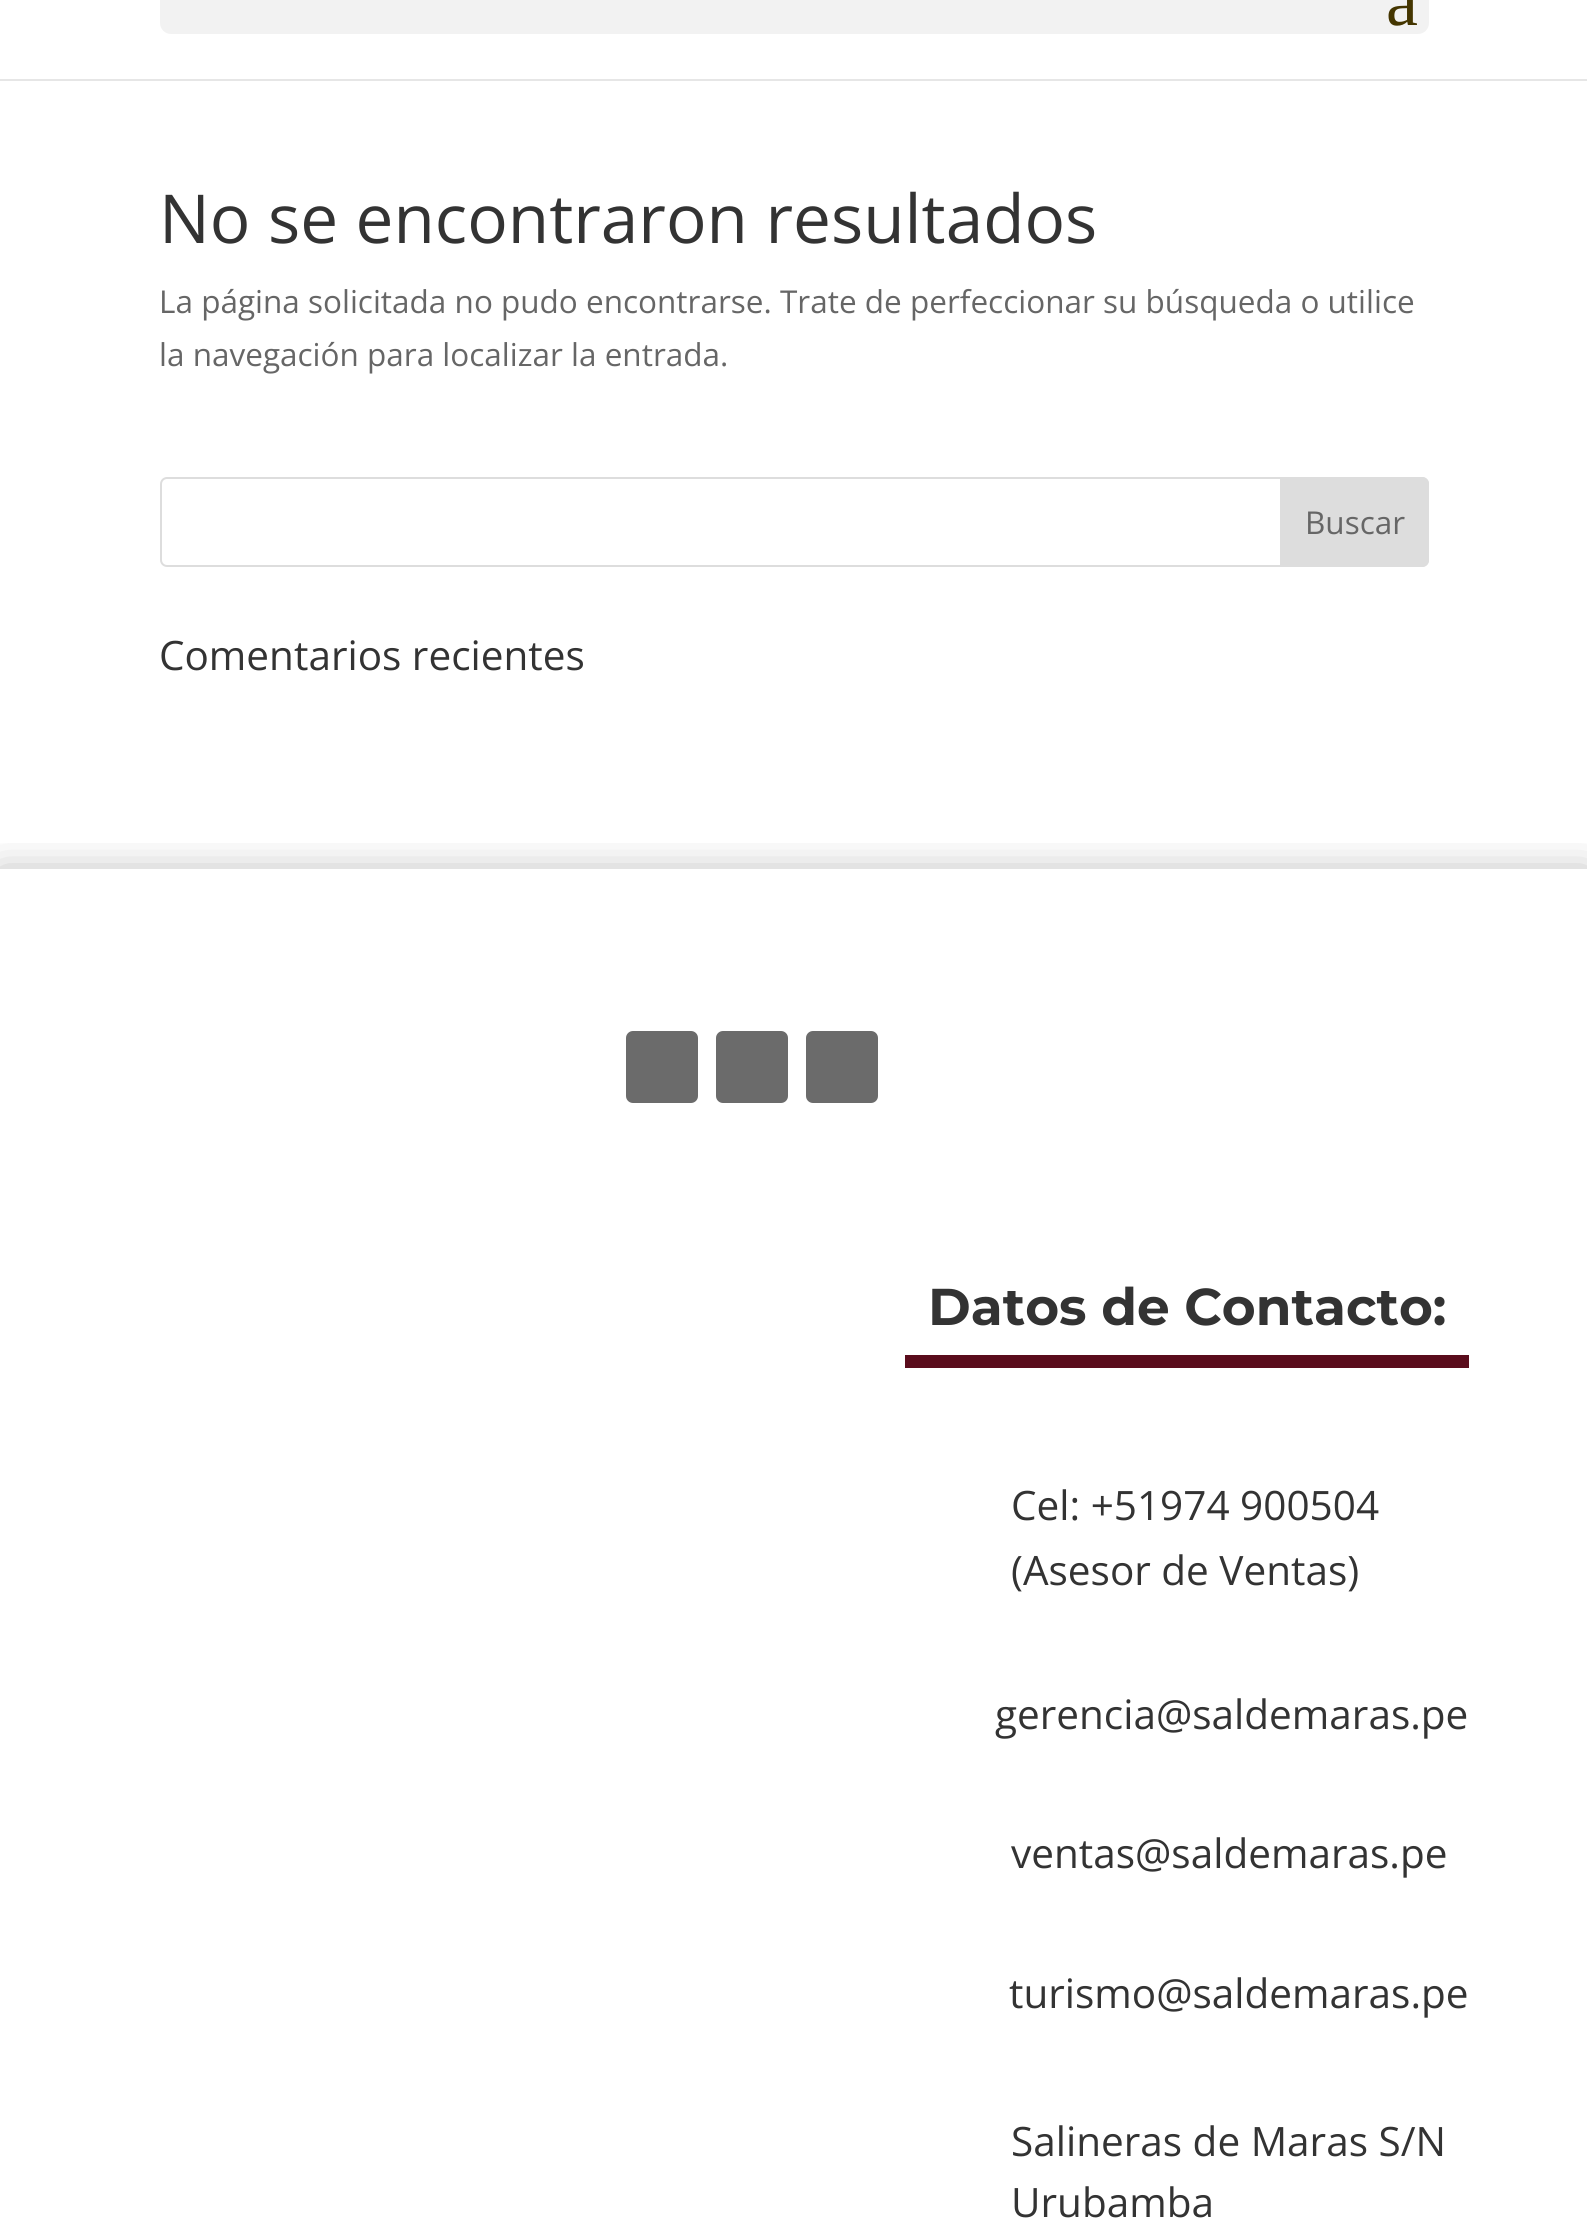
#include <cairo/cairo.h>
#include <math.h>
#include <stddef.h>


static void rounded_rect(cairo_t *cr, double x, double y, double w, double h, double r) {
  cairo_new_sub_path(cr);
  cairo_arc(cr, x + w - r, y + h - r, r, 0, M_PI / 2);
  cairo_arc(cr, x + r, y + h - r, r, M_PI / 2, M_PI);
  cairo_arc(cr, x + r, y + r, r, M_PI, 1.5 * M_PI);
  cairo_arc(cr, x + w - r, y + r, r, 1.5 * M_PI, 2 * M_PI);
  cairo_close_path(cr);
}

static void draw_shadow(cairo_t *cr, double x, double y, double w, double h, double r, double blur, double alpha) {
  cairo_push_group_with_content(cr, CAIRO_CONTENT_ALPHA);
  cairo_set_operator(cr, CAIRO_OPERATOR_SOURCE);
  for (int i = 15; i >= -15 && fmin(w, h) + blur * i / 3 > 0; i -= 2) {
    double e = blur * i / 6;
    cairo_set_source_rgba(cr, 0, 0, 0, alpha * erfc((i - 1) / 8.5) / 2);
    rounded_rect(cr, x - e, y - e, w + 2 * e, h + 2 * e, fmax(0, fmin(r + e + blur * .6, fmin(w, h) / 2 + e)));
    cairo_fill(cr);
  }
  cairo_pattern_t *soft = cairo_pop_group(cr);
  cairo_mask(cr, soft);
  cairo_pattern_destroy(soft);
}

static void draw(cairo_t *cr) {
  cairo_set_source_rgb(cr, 1, 1, 1);
  cairo_paint(cr);
  cairo_set_source_rgb(cr, 230 / 255.0, 230 / 255.0, 230 / 255.0);
  cairo_new_path(cr);
  cairo_move_to(cr, 0, 79);
  cairo_line_to(cr, 0, 81);
  cairo_line_to(cr, 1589, 81);
  cairo_line_to(cr, 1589, -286);
  cairo_line_to(cr, 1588, -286);
  cairo_line_to(cr, 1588, 79);
  cairo_close_path(cr);
  cairo_fill(cr);
  cairo_set_source_rgb(cr, 242 / 255.0, 242 / 255.0, 242 / 255.0);
  rounded_rect(cr, 160, -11, 1269, 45, 11);
  cairo_fill(cr);
  rounded_rect(cr, 161, 478, 1267, 88, 6);
  cairo_set_source_rgb(cr, 221 / 255.0, 221 / 255.0, 221 / 255.0);
  cairo_stroke(cr);
  cairo_new_path(cr);
  cairo_move_to(cr, 1281, 478);
  cairo_line_to(cr, 1422, 478);
  cairo_curve_to(cr, 1425.5, 478, 1428, 480.5, 1428, 484);
  cairo_line_to(cr, 1428, 560);
  cairo_curve_to(cr, 1428, 563.5, 1425.5, 566, 1422, 566);
  cairo_line_to(cr, 1281, 566);
  cairo_close_path(cr);
  cairo_fill_preserve(cr);
  cairo_stroke(cr);
  cairo_save(cr);
  cairo_rectangle(cr, 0, 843, 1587, 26);
  cairo_clip(cr);
  cairo_set_source_rgb(cr, 0, 0, 0);
  draw_shadow(cr, 0, 873, 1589, 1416, 0, 20, 0.3);
  cairo_restore(cr);
  cairo_set_source_rgb(cr, 107 / 255.0, 107 / 255.0, 107 / 255.0);
  rounded_rect(cr, 626, 1031, 72, 72, 7);
  cairo_fill(cr);
  rounded_rect(cr, 716, 1031, 72, 72, 7);
  cairo_fill(cr);
  rounded_rect(cr, 806, 1031, 72, 72, 7);
  cairo_fill(cr);
  cairo_set_source_rgb(cr, 90 / 255.0, 12 / 255.0, 28 / 255.0);
  cairo_rectangle(cr, 905, 1355, 564, 13);
  cairo_fill(cr);
  cairo_select_font_face(cr, "Liberation Serif", CAIRO_FONT_SLANT_NORMAL, CAIRO_FONT_WEIGHT_NORMAL);
  cairo_set_font_size(cr, 72);
  cairo_set_source_rgb(cr, 68 / 255.0, 53 / 255.0, 0);
  cairo_move_to(cr, 1386, 25);
  cairo_show_text(cr, "a");
  cairo_select_font_face(cr, "Open Sans", CAIRO_FONT_SLANT_NORMAL, CAIRO_FONT_WEIGHT_NORMAL);
  cairo_set_font_size(cr, 67.5);
  cairo_set_source_rgb(cr, 51 / 255.0, 51 / 255.0, 51 / 255.0);
  cairo_move_to(cr, 159, 243);
  cairo_show_text(cr, "No se encontraron resultados");
  cairo_set_font_size(cr, 31.5);
  cairo_set_source_rgb(cr, 102 / 255.0, 102 / 255.0, 102 / 255.0);
  cairo_move_to(cr, 159, 313);
  cairo_show_text(cr, "La página solicitada no pudo encontrarse. Trate de perfeccionar su búsqueda o utilice");
  cairo_move_to(cr, 159, 366);
  cairo_show_text(cr, "la navegación para localizar la entrada.");
  cairo_move_to(cr, 1305, 534);
  cairo_show_text(cr, "Buscar");
  cairo_set_font_size(cr, 40.5);
  cairo_set_source_rgb(cr, 51 / 255.0, 51 / 255.0, 51 / 255.0);
  cairo_move_to(cr, 159, 670);
  cairo_show_text(cr, "Comentarios recientes");
  cairo_select_font_face(cr, "Montserrat Thin", CAIRO_FONT_SLANT_NORMAL, CAIRO_FONT_WEIGHT_NORMAL);
  cairo_set_font_size(cr, 51.75);
  cairo_move_to(cr, 928, 1325);
  cairo_show_text(cr, "Datos de Contacto:");
  cairo_select_font_face(cr, "Open Sans", CAIRO_FONT_SLANT_NORMAL, CAIRO_FONT_WEIGHT_NORMAL);
  cairo_set_font_size(cr, 40.5);
  cairo_move_to(cr, 1011, 1520);
  cairo_show_text(cr, "Cel: +51974 900504");
  cairo_move_to(cr, 1011, 1585);
  cairo_show_text(cr, "(Asesor de Ventas)");
  cairo_move_to(cr, 995, 1729);
  cairo_show_text(cr, "gerencia@saldemaras.pe");
  cairo_move_to(cr, 1011, 1868);
  cairo_show_text(cr, "ventas@saldemaras.pe");
  cairo_move_to(cr, 1009, 2008);
  cairo_show_text(cr, "turismo@saldemaras.pe");
  cairo_move_to(cr, 1011, 2156);
  cairo_show_text(cr, "Salineras de Maras S/N");
  cairo_move_to(cr, 1011, 2217);
  cairo_show_text(cr, "Urubamba");
}

int main(void) {
  cairo_surface_t *surface = cairo_image_surface_create(CAIRO_FORMAT_RGB24, 1587, 2229);
  cairo_t *cr = cairo_create(surface);
  cairo_font_options_t *options = cairo_font_options_create();
  cairo_font_options_set_hint_metrics(options, CAIRO_HINT_METRICS_OFF);
  cairo_font_options_set_hint_style(options, CAIRO_HINT_STYLE_NONE);
  cairo_set_font_options(cr, options);
  cairo_set_miter_limit(cr, 4);
  draw(cr);
  cairo_surface_write_to_png(surface, "out.png");
  cairo_font_options_destroy(options);
  cairo_destroy(cr);
  cairo_surface_destroy(surface);
  return 0;
}
